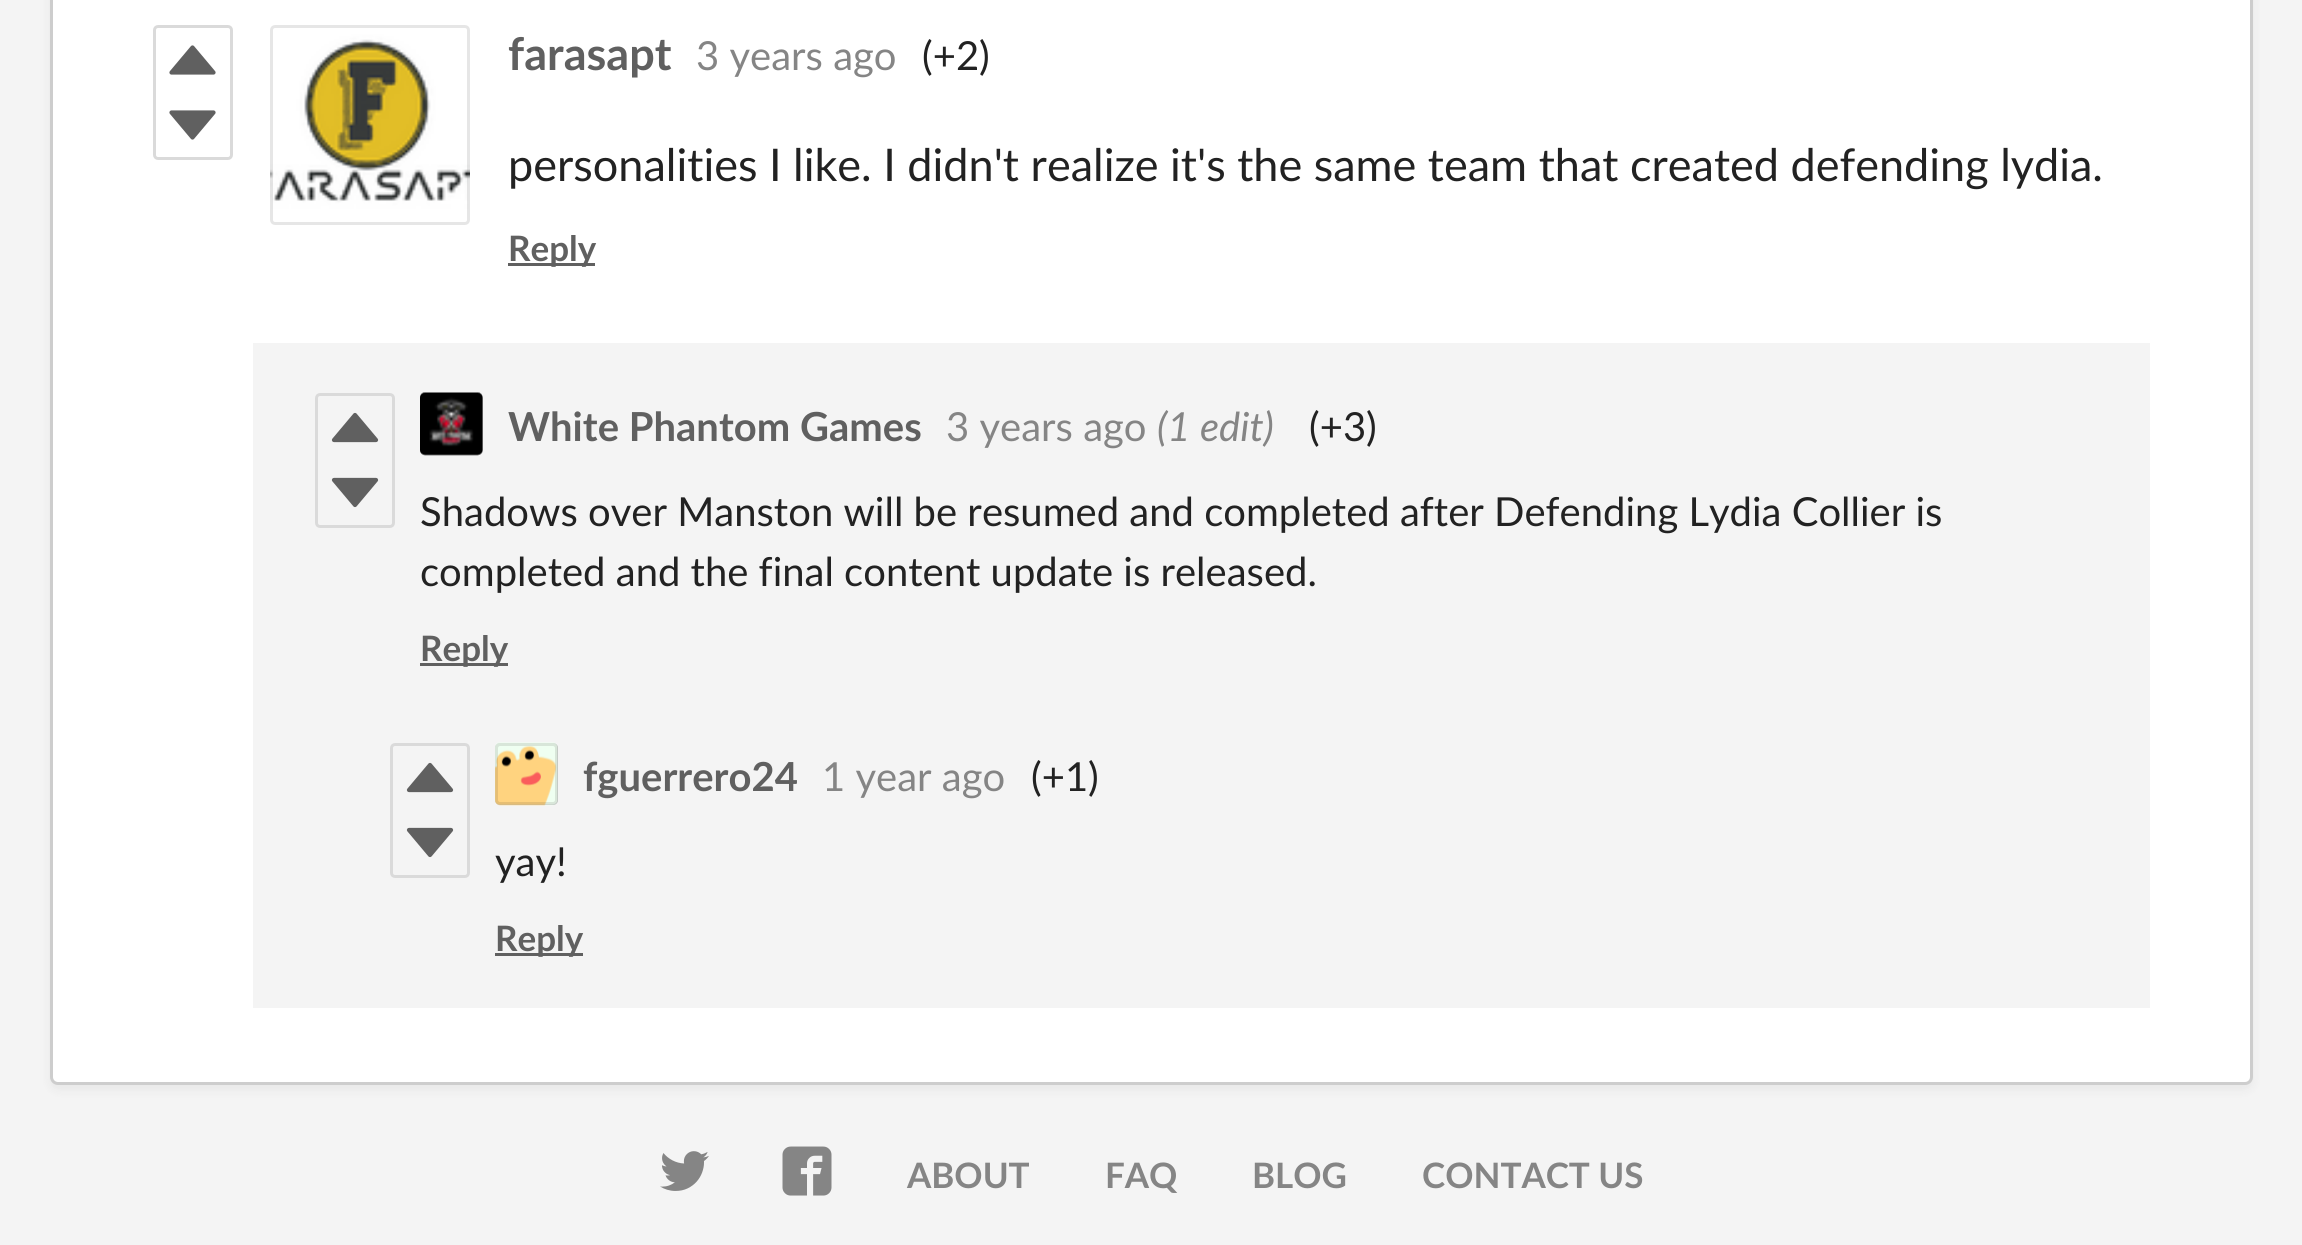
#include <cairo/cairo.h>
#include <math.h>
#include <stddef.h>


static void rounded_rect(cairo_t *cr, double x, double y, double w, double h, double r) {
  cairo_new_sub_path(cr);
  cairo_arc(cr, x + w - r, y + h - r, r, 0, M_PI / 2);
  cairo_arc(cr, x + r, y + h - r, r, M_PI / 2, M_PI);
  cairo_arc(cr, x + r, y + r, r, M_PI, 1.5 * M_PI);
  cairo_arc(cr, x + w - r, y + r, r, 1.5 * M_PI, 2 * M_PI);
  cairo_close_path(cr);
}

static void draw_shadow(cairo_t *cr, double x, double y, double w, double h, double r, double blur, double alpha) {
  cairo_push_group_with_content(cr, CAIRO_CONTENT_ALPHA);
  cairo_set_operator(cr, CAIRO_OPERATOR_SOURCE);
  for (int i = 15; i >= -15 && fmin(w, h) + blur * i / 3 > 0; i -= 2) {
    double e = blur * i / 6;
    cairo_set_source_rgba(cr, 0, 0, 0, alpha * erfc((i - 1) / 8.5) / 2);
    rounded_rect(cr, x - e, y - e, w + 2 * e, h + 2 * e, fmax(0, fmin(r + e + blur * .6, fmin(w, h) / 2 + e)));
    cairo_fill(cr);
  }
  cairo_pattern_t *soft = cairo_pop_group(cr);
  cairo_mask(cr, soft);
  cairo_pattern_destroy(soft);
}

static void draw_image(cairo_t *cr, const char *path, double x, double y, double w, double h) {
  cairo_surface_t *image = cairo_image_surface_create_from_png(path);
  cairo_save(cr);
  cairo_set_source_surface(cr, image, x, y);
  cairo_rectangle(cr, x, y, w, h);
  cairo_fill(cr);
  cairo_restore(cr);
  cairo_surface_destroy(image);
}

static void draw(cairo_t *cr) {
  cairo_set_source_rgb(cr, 244 / 255.0, 244 / 255.0, 244 / 255.0);
  cairo_paint(cr);
  cairo_set_source_rgb(cr, 0, 0, 0);
  draw_shadow(cr, 50, -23, 2203, 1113, 8, 5, 0.05);
  cairo_set_source_rgb(cr, 1, 1, 1);
  rounded_rect(cr, 51.5, -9.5, 2200, 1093, 6.5);
  cairo_fill_preserve(cr);
  cairo_set_source_rgb(cr, 205 / 255.0, 205 / 255.0, 205 / 255.0);
  cairo_set_line_width(cr, 3);
  cairo_stroke(cr);
  rounded_rect(cr, 154.5, 26.5, 77, 132, 3.5);
  cairo_set_source_rgb(cr, 218 / 255.0, 218 / 255.0, 218 / 255.0);
  cairo_stroke(cr);
  cairo_set_source_rgb(cr, 96 / 255.0, 96 / 255.0, 96 / 255.0);
  cairo_new_path(cr);
  cairo_move_to(cr, 172, 72);
  cairo_line_to(cr, 192, 48);
  cairo_line_to(cr, 213, 72);
  cairo_close_path(cr);
  cairo_fill(cr);
  cairo_new_path(cr);
  cairo_move_to(cr, 171.5, 72.5);
  cairo_line_to(cr, 192.5, 47.5);
  cairo_line_to(cr, 213.5, 72.5);
  cairo_close_path(cr);
  cairo_set_line_width(cr, 4.2);
  cairo_set_line_join(cr, CAIRO_LINE_JOIN_ROUND);
  cairo_stroke(cr);
  cairo_new_path(cr);
  cairo_move_to(cr, 172, 112);
  cairo_line_to(cr, 192, 138);
  cairo_line_to(cr, 213, 112);
  cairo_close_path(cr);
  cairo_fill(cr);
  cairo_new_path(cr);
  cairo_move_to(cr, 171.5, 112.5);
  cairo_line_to(cr, 192.5, 137.5);
  cairo_line_to(cr, 213.5, 112.5);
  cairo_close_path(cr);
  cairo_stroke(cr);
  draw_image(cr, "images/1.png", 270, 25, 200, 200);
  rounded_rect(cr, 271.5, 26.5, 197, 197, 3.5);
  cairo_set_source_rgba(cr, 0, 0, 0, 0.1);
  cairo_set_line_width(cr, 3);
  cairo_set_line_join(cr, CAIRO_LINE_JOIN_MITER);
  cairo_stroke(cr);
  cairo_set_source_rgb(cr, 96 / 255.0, 96 / 255.0, 96 / 255.0);
  cairo_rectangle(cr, 508, 263, 87, 3);
  cairo_fill(cr);
  cairo_set_source_rgb(cr, 244 / 255.0, 244 / 255.0, 244 / 255.0);
  cairo_rectangle(cr, 253, 343, 1897, 665);
  cairo_fill(cr);
  rounded_rect(cr, 316.5, 394.5, 77, 132, 3.5);
  cairo_set_source_rgb(cr, 218 / 255.0, 218 / 255.0, 218 / 255.0);
  cairo_stroke(cr);
  cairo_set_source_rgb(cr, 96 / 255.0, 96 / 255.0, 96 / 255.0);
  cairo_new_path(cr);
  cairo_move_to(cr, 334, 440);
  cairo_line_to(cr, 355, 415);
  cairo_line_to(cr, 376, 440);
  cairo_close_path(cr);
  cairo_fill_preserve(cr);
  cairo_set_line_width(cr, 4.2);
  cairo_set_line_join(cr, CAIRO_LINE_JOIN_ROUND);
  cairo_stroke(cr);
  cairo_new_path(cr);
  cairo_move_to(cr, 334, 480);
  cairo_line_to(cr, 355, 505);
  cairo_line_to(cr, 376, 480);
  cairo_close_path(cr);
  cairo_fill_preserve(cr);
  cairo_stroke(cr);
  cairo_set_source_rgb(cr, 195 / 255.0, 195 / 255.0, 195 / 255.0);
  rounded_rect(cr, 420, 393, 63, 62, 5);
  cairo_fill(cr);
  draw_image(cr, "images/2.png", 420, 392, 63, 64);
  rounded_rect(cr, 421.5, 394.5, 60, 59, 3.5);
  cairo_set_source_rgba(cr, 0, 0, 0, 0.1);
  cairo_set_line_width(cr, 3);
  cairo_set_line_join(cr, CAIRO_LINE_JOIN_MITER);
  cairo_stroke(cr);
  cairo_set_source_rgb(cr, 96 / 255.0, 96 / 255.0, 96 / 255.0);
  cairo_rectangle(cr, 420, 663, 88, 3);
  cairo_fill(cr);
  rounded_rect(cr, 391.5, 744.5, 77, 132, 3.5);
  cairo_set_source_rgb(cr, 218 / 255.0, 218 / 255.0, 218 / 255.0);
  cairo_stroke(cr);
  cairo_set_source_rgb(cr, 96 / 255.0, 96 / 255.0, 96 / 255.0);
  cairo_new_path(cr);
  cairo_move_to(cr, 409, 790);
  cairo_line_to(cr, 430, 765);
  cairo_line_to(cr, 451, 790);
  cairo_close_path(cr);
  cairo_fill_preserve(cr);
  cairo_set_line_width(cr, 4.2);
  cairo_set_line_join(cr, CAIRO_LINE_JOIN_ROUND);
  cairo_stroke(cr);
  cairo_new_path(cr);
  cairo_move_to(cr, 409, 830);
  cairo_line_to(cr, 430, 855);
  cairo_line_to(cr, 451, 830);
  cairo_close_path(cr);
  cairo_fill_preserve(cr);
  cairo_stroke(cr);
  cairo_set_source_rgb(cr, 195 / 255.0, 195 / 255.0, 195 / 255.0);
  rounded_rect(cr, 495, 743, 63, 62, 5);
  cairo_fill(cr);
  draw_image(cr, "images/3.png", 495, 742, 63, 64);
  rounded_rect(cr, 496.5, 744.5, 60, 59, 3.5);
  cairo_set_source_rgba(cr, 0, 0, 0, 0.1);
  cairo_set_line_width(cr, 3);
  cairo_set_line_join(cr, CAIRO_LINE_JOIN_MITER);
  cairo_stroke(cr);
  cairo_set_source_rgb(cr, 96 / 255.0, 96 / 255.0, 96 / 255.0);
  cairo_rectangle(cr, 495, 953, 88, 3);
  cairo_fill(cr);
  draw_image(cr, "images/4.png", 660, 1151, 49, 40);
  draw_image(cr, "images/5.png", 782, 1146, 50, 50);
  cairo_select_font_face(cr, "Lato", CAIRO_FONT_SLANT_NORMAL, CAIRO_FONT_WEIGHT_BOLD);
  cairo_set_font_size(cr, 45);
  cairo_move_to(cr, 508, 70);
  cairo_show_text(cr, "farasapt");
  cairo_select_font_face(cr, "Lato", CAIRO_FONT_SLANT_NORMAL, CAIRO_FONT_WEIGHT_NORMAL);
  cairo_set_font_size(cr, 40);
  cairo_set_source_rgb(cr, 133 / 255.0, 133 / 255.0, 133 / 255.0);
  cairo_move_to(cr, 696, 70);
  cairo_show_text(cr, "3 years ago");
  cairo_set_source_rgb(cr, 34 / 255.0, 34 / 255.0, 34 / 255.0);
  cairo_move_to(cr, 922, 70);
  cairo_show_text(cr, "(+2)");
  cairo_set_font_size(cr, 45);
  cairo_move_to(cr, 508, 181);
  cairo_show_text(cr, "personalities I like. I didn't realize it's the same team that created defending lydia.");
  cairo_select_font_face(cr, "Lato", CAIRO_FONT_SLANT_NORMAL, CAIRO_FONT_WEIGHT_BOLD);
  cairo_set_font_size(cr, 35);
  cairo_set_source_rgb(cr, 96 / 255.0, 96 / 255.0, 96 / 255.0);
  cairo_move_to(cr, 508, 261);
  cairo_show_text(cr, "Reply");
  cairo_set_font_size(cr, 40);
  cairo_move_to(cr, 508, 441);
  cairo_show_text(cr, "White Phantom Games");
  cairo_select_font_face(cr, "Lato", CAIRO_FONT_SLANT_NORMAL, CAIRO_FONT_WEIGHT_NORMAL);
  cairo_set_source_rgb(cr, 133 / 255.0, 133 / 255.0, 133 / 255.0);
  cairo_move_to(cr, 946, 441);
  cairo_show_text(cr, "3 years ago");
  cairo_select_font_face(cr, "Lato", CAIRO_FONT_SLANT_ITALIC, CAIRO_FONT_WEIGHT_NORMAL);
  cairo_move_to(cr, 1157, 441);
  cairo_show_text(cr, "(1 edit)");
  cairo_select_font_face(cr, "Lato", CAIRO_FONT_SLANT_NORMAL, CAIRO_FONT_WEIGHT_NORMAL);
  cairo_set_source_rgb(cr, 34 / 255.0, 34 / 255.0, 34 / 255.0);
  cairo_move_to(cr, 1309, 441);
  cairo_show_text(cr, "(+3)");
  cairo_move_to(cr, 420, 526);
  cairo_show_text(cr, "Shadows over Manston will be resumed and completed after Defending Lydia Collier is");
  cairo_move_to(cr, 420, 586);
  cairo_show_text(cr, "completed and the final content update is released.");
  cairo_select_font_face(cr, "Lato", CAIRO_FONT_SLANT_NORMAL, CAIRO_FONT_WEIGHT_BOLD);
  cairo_set_font_size(cr, 35);
  cairo_set_source_rgb(cr, 96 / 255.0, 96 / 255.0, 96 / 255.0);
  cairo_move_to(cr, 420, 661);
  cairo_show_text(cr, "Reply");
  cairo_set_font_size(cr, 40);
  cairo_move_to(cr, 583, 791);
  cairo_show_text(cr, "fguerrero24");
  cairo_select_font_face(cr, "Lato", CAIRO_FONT_SLANT_NORMAL, CAIRO_FONT_WEIGHT_NORMAL);
  cairo_set_source_rgb(cr, 133 / 255.0, 133 / 255.0, 133 / 255.0);
  cairo_move_to(cr, 822, 791);
  cairo_show_text(cr, "1 year ago");
  cairo_set_source_rgb(cr, 34 / 255.0, 34 / 255.0, 34 / 255.0);
  cairo_move_to(cr, 1031, 791);
  cairo_show_text(cr, "(+1)");
  cairo_move_to(cr, 495, 876);
  cairo_show_text(cr, "yay!");
  cairo_select_font_face(cr, "Lato", CAIRO_FONT_SLANT_NORMAL, CAIRO_FONT_WEIGHT_BOLD);
  cairo_set_font_size(cr, 35);
  cairo_set_source_rgb(cr, 96 / 255.0, 96 / 255.0, 96 / 255.0);
  cairo_move_to(cr, 495, 951);
  cairo_show_text(cr, "Reply");
  cairo_set_source_rgb(cr, 133 / 255.0, 133 / 255.0, 133 / 255.0);
  cairo_move_to(cr, 907, 1188);
  cairo_show_text(cr, "ABOUT");
  cairo_move_to(cr, 1105, 1188);
  cairo_show_text(cr, "FAQ");
  cairo_move_to(cr, 1252, 1188);
  cairo_show_text(cr, "BLOG");
  cairo_move_to(cr, 1422, 1188);
  cairo_show_text(cr, "CONTACT US");
}

int main(void) {
  cairo_surface_t *surface = cairo_image_surface_create(CAIRO_FORMAT_RGB24, 2302, 1245);
  cairo_t *cr = cairo_create(surface);
  cairo_font_options_t *options = cairo_font_options_create();
  cairo_font_options_set_hint_metrics(options, CAIRO_HINT_METRICS_OFF);
  cairo_font_options_set_hint_style(options, CAIRO_HINT_STYLE_NONE);
  cairo_set_font_options(cr, options);
  cairo_set_miter_limit(cr, 4);
  draw(cr);
  cairo_surface_write_to_png(surface, "out.png");
  cairo_font_options_destroy(options);
  cairo_destroy(cr);
  cairo_surface_destroy(surface);
  return 0;
}
